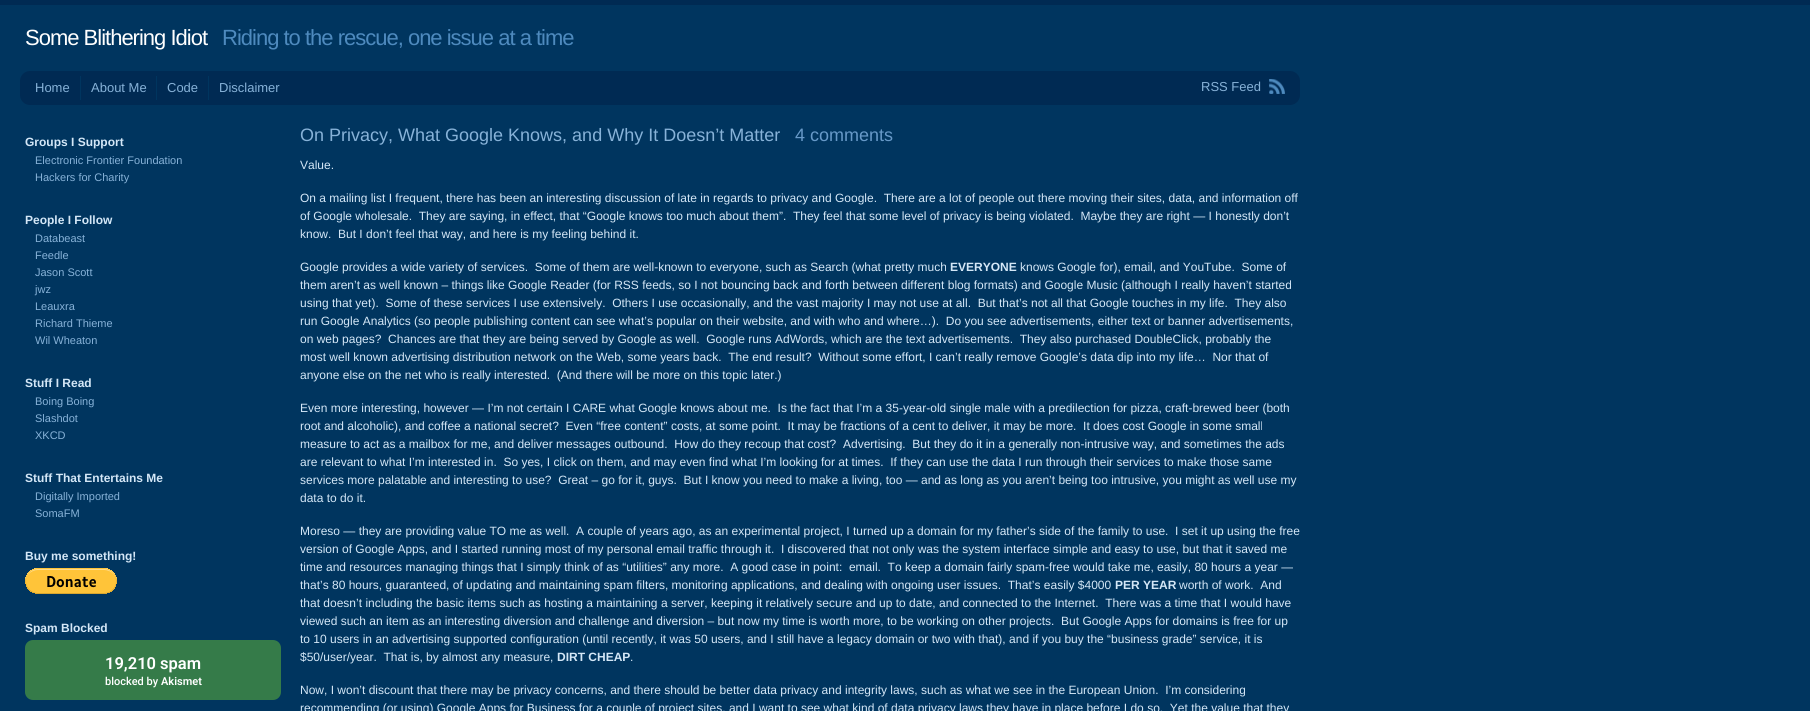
#include <cairo/cairo.h>
#include <math.h>
#include <stddef.h>


static void draw_spaced(cairo_t *cr, double x, double y, const char *s, double letter, double word) {
  cairo_move_to(cr, x, y);
  while (*s) {
    char ch[5] = {0};
    int n = 0;
    do ch[n++] = *s++; while ((*s & 0xC0) == 0x80);
    cairo_show_text(cr, ch);
    cairo_rel_move_to(cr, letter + word * (*ch == ' '), 0);
  }
}

static void rounded_rect(cairo_t *cr, double x, double y, double w, double h, double r) {
  cairo_new_sub_path(cr);
  cairo_arc(cr, x + w - r, y + h - r, r, 0, M_PI / 2);
  cairo_arc(cr, x + r, y + h - r, r, M_PI / 2, M_PI);
  cairo_arc(cr, x + r, y + r, r, M_PI, 1.5 * M_PI);
  cairo_arc(cr, x + w - r, y + r, r, 1.5 * M_PI, 2 * M_PI);
  cairo_close_path(cr);
}

static void draw_image(cairo_t *cr, const char *path, double x, double y, double w, double h) {
  cairo_surface_t *image = cairo_image_surface_create_from_png(path);
  cairo_save(cr);
  cairo_set_source_surface(cr, image, x, y);
  cairo_rectangle(cr, x, y, w, h);
  cairo_fill(cr);
  cairo_restore(cr);
  cairo_surface_destroy(image);
}

static void draw(cairo_t *cr) {
  cairo_set_source_rgb(cr, 0, 53 / 255.0, 95 / 255.0);
  cairo_paint(cr);
  cairo_set_source_rgb(cr, 0, 42 / 255.0, 83 / 255.0);
  cairo_rectangle(cr, 0, 0, 1810, 5);
  cairo_fill(cr);
  rounded_rect(cr, 20, 71, 1280, 34, 10);
  cairo_fill(cr);
  cairo_set_source_rgb(cr, 0, 53 / 255.0, 95 / 255.0);
  cairo_rectangle(cr, 80, 76, 1, 24);
  cairo_fill(cr);
  cairo_rectangle(cr, 156, 76, 1, 24);
  cairo_fill(cr);
  cairo_rectangle(cr, 208, 76, 1, 24);
  cairo_fill(cr);
  draw_image(cr, "images/1.png", 1269, 79, 16, 15);
  draw_image(cr, "images/2.png", 25, 568, 92, 26);
  cairo_set_source_rgb(cr, 53 / 255.0, 123 / 255.0, 73 / 255.0);
  rounded_rect(cr, 25, 640, 256, 60, 8);
  cairo_fill(cr);
  cairo_select_font_face(cr, "Liberation Sans", CAIRO_FONT_SLANT_NORMAL, CAIRO_FONT_WEIGHT_NORMAL);
  cairo_set_font_size(cr, 22);
  cairo_set_source_rgb(cr, 1, 1, 1);
  draw_spaced(cr, 25, 45, "Some Blithering Idiot", -1, 0);
  cairo_set_source_rgb(cr, 78 / 255.0, 138 / 255.0, 190 / 255.0);
  draw_spaced(cr, 222, 45, "Riding to the rescue, one issue at a time", -1, 0);
  cairo_set_font_size(cr, 13);
  cairo_set_source_rgb(cr, 135 / 255.0, 178 / 255.0, 216 / 255.0);
  cairo_move_to(cr, 35, 92);
  cairo_show_text(cr, "Home");
  cairo_move_to(cr, 91, 92);
  cairo_show_text(cr, "About Me");
  cairo_move_to(cr, 167, 92);
  cairo_show_text(cr, "Code");
  cairo_move_to(cr, 219, 92);
  cairo_show_text(cr, "Disclaimer");
  cairo_move_to(cr, 1201, 91);
  cairo_show_text(cr, "RSS Feed");
  cairo_select_font_face(cr, "Liberation Sans", CAIRO_FONT_SLANT_NORMAL, CAIRO_FONT_WEIGHT_BOLD);
  cairo_set_font_size(cr, 12);
  cairo_set_source_rgb(cr, 212 / 255.0, 231 / 255.0, 247 / 255.0);
  cairo_move_to(cr, 25, 146);
  cairo_show_text(cr, "Groups I Support");
  cairo_select_font_face(cr, "Liberation Sans", CAIRO_FONT_SLANT_NORMAL, CAIRO_FONT_WEIGHT_NORMAL);
  cairo_set_font_size(cr, 11);
  cairo_set_source_rgb(cr, 135 / 255.0, 178 / 255.0, 216 / 255.0);
  cairo_move_to(cr, 35, 164);
  cairo_show_text(cr, "Electronic Frontier Foundation");
  cairo_move_to(cr, 35, 181);
  cairo_show_text(cr, "Hackers for Charity");
  cairo_select_font_face(cr, "Liberation Sans", CAIRO_FONT_SLANT_NORMAL, CAIRO_FONT_WEIGHT_BOLD);
  cairo_set_font_size(cr, 12);
  cairo_set_source_rgb(cr, 212 / 255.0, 231 / 255.0, 247 / 255.0);
  cairo_move_to(cr, 25, 224);
  cairo_show_text(cr, "People I Follow");
  cairo_select_font_face(cr, "Liberation Sans", CAIRO_FONT_SLANT_NORMAL, CAIRO_FONT_WEIGHT_NORMAL);
  cairo_set_font_size(cr, 11);
  cairo_set_source_rgb(cr, 135 / 255.0, 178 / 255.0, 216 / 255.0);
  cairo_move_to(cr, 35, 242);
  cairo_show_text(cr, "Databeast");
  cairo_move_to(cr, 35, 259);
  cairo_show_text(cr, "Feedle");
  cairo_move_to(cr, 35, 276);
  cairo_show_text(cr, "Jason Scott");
  cairo_move_to(cr, 35, 293);
  cairo_show_text(cr, "jwz");
  cairo_move_to(cr, 35, 310);
  cairo_show_text(cr, "Leauxra");
  cairo_move_to(cr, 35, 327);
  cairo_show_text(cr, "Richard Thieme");
  cairo_move_to(cr, 35, 344);
  cairo_show_text(cr, "Wil Wheaton");
  cairo_select_font_face(cr, "Liberation Sans", CAIRO_FONT_SLANT_NORMAL, CAIRO_FONT_WEIGHT_BOLD);
  cairo_set_font_size(cr, 12);
  cairo_set_source_rgb(cr, 212 / 255.0, 231 / 255.0, 247 / 255.0);
  cairo_move_to(cr, 25, 387);
  cairo_show_text(cr, "Stuff I Read");
  cairo_select_font_face(cr, "Liberation Sans", CAIRO_FONT_SLANT_NORMAL, CAIRO_FONT_WEIGHT_NORMAL);
  cairo_set_font_size(cr, 11);
  cairo_set_source_rgb(cr, 135 / 255.0, 178 / 255.0, 216 / 255.0);
  cairo_move_to(cr, 35, 405);
  cairo_show_text(cr, "Boing Boing");
  cairo_move_to(cr, 35, 422);
  cairo_show_text(cr, "Slashdot");
  cairo_move_to(cr, 35, 439);
  cairo_show_text(cr, "XKCD");
  cairo_select_font_face(cr, "Liberation Sans", CAIRO_FONT_SLANT_NORMAL, CAIRO_FONT_WEIGHT_BOLD);
  cairo_set_font_size(cr, 12);
  cairo_set_source_rgb(cr, 212 / 255.0, 231 / 255.0, 247 / 255.0);
  cairo_move_to(cr, 25, 482);
  cairo_show_text(cr, "Stuff That Entertains Me");
  cairo_select_font_face(cr, "Liberation Sans", CAIRO_FONT_SLANT_NORMAL, CAIRO_FONT_WEIGHT_NORMAL);
  cairo_set_font_size(cr, 11);
  cairo_set_source_rgb(cr, 135 / 255.0, 178 / 255.0, 216 / 255.0);
  cairo_move_to(cr, 35, 500);
  cairo_show_text(cr, "Digitally Imported");
  cairo_move_to(cr, 35, 517);
  cairo_show_text(cr, "SomaFM");
  cairo_select_font_face(cr, "Liberation Sans", CAIRO_FONT_SLANT_NORMAL, CAIRO_FONT_WEIGHT_BOLD);
  cairo_set_font_size(cr, 12);
  cairo_set_source_rgb(cr, 212 / 255.0, 231 / 255.0, 247 / 255.0);
  cairo_move_to(cr, 25, 560);
  cairo_show_text(cr, "Buy me something!");
  cairo_move_to(cr, 25, 632);
  cairo_show_text(cr, "Spam Blocked");
  cairo_select_font_face(cr, "Roboto SemiBold", CAIRO_FONT_SLANT_NORMAL, CAIRO_FONT_WEIGHT_NORMAL);
  cairo_set_font_size(cr, 16.5);
  cairo_set_source_rgb(cr, 1, 1, 1);
  cairo_move_to(cr, 105, 669);
  cairo_show_text(cr, "19,210 spam");
  cairo_select_font_face(cr, "Roboto Medium", CAIRO_FONT_SLANT_NORMAL, CAIRO_FONT_WEIGHT_NORMAL);
  cairo_set_font_size(cr, 11);
  cairo_move_to(cr, 105, 685);
  cairo_show_text(cr, "blocked by");
  cairo_select_font_face(cr, "Roboto SemiBold", CAIRO_FONT_SLANT_NORMAL, CAIRO_FONT_WEIGHT_NORMAL);
  cairo_move_to(cr, 161, 685);
  cairo_show_text(cr, "Akismet");
  cairo_select_font_face(cr, "Liberation Sans", CAIRO_FONT_SLANT_NORMAL, CAIRO_FONT_WEIGHT_NORMAL);
  cairo_set_font_size(cr, 18);
  cairo_set_source_rgb(cr, 135 / 255.0, 178 / 255.0, 216 / 255.0);
  cairo_move_to(cr, 300, 141);
  cairo_show_text(cr, "On Privacy, What Google Knows, and Why It Doesn’t Matter");
  cairo_set_source_rgb(cr, 103 / 255.0, 153 / 255.0, 200 / 255.0);
  cairo_move_to(cr, 795, 141);
  cairo_show_text(cr, "4 comments");
  cairo_set_font_size(cr, 12);
  cairo_set_source_rgb(cr, 212 / 255.0, 231 / 255.0, 247 / 255.0);
  cairo_move_to(cr, 300, 169);
  cairo_show_text(cr, "Value.");
  cairo_move_to(cr, 300, 202);
  cairo_show_text(cr, "On a mailing list I frequent, there has been an interesting discussion of late in regards to privacy and Google.  There are a lot of people out there moving their sites, data, and information off");
  cairo_move_to(cr, 300, 220);
  cairo_show_text(cr, "of Google wholesale.  They are saying, in effect, that “Google knows too much about them”.  They feel that some level of privacy is being violated.  Maybe they are right — I honestly don’t");
  cairo_move_to(cr, 300, 238);
  cairo_show_text(cr, "know.  But I don’t feel that way, and here is my feeling behind it.");
  cairo_move_to(cr, 300, 271);
  cairo_show_text(cr, "Google provides a wide variety of services.  Some of them are well-known to everyone, such as Search (what pretty much");
  cairo_select_font_face(cr, "Liberation Sans", CAIRO_FONT_SLANT_NORMAL, CAIRO_FONT_WEIGHT_BOLD);
  cairo_move_to(cr, 950, 271);
  cairo_show_text(cr, "EVERYONE");
  cairo_select_font_face(cr, "Liberation Sans", CAIRO_FONT_SLANT_NORMAL, CAIRO_FONT_WEIGHT_NORMAL);
  cairo_move_to(cr, 1020, 271);
  cairo_show_text(cr, "knows Google for), email, and YouTube.  Some of");
  cairo_move_to(cr, 300, 289);
  cairo_show_text(cr, "them aren’t as well known – things like Google Reader (for RSS feeds, so I not bouncing back and forth between different blog formats) and Google Music (although I really haven’t started");
  cairo_move_to(cr, 300, 307);
  cairo_show_text(cr, "using that yet).  Some of these services I use extensively.  Others I use occasionally, and the vast majority I may not use at all.  But that’s not all that Google touches in my life.  They also");
  cairo_move_to(cr, 300, 325);
  cairo_show_text(cr, "run Google Analytics (so people publishing content can see what’s popular on their website, and with who and where…).  Do you see advertisements, either text or banner advertisements,");
  cairo_move_to(cr, 300, 343);
  cairo_show_text(cr, "on web pages?  Chances are that they are being served by Google as well.  Google runs AdWords, which are the text advertisements.  They also purchased DoubleClick, probably the");
  cairo_move_to(cr, 300, 361);
  cairo_show_text(cr, "most well known advertising distribution network on the Web, some years back.  The end result?  Without some effort, I can’t really remove Google’s data dip into my life…  Nor that of");
  cairo_move_to(cr, 300, 379);
  cairo_show_text(cr, "anyone else on the net who is really interested.  (And there will be more on this topic later.)");
  cairo_move_to(cr, 300, 412);
  cairo_show_text(cr, "Even more interesting, however — I’m not certain I CARE what Google knows about me.  Is the fact that I’m a 35-year-old single male with a predilection for pizza, craft-brewed beer (both");
  cairo_move_to(cr, 300, 430);
  cairo_show_text(cr, "root and alcoholic), and coffee a national secret?  Even “free content” costs, at some point.  It may be fractions of a cent to deliver, it may be more.  It does cost Google in some small");
  cairo_move_to(cr, 300, 448);
  cairo_show_text(cr, "measure to act as a mailbox for me, and deliver messages outbound.  How do they recoup that cost?  Advertising.  But they do it in a generally non-intrusive way, and sometimes the ads");
  cairo_move_to(cr, 300, 466);
  cairo_show_text(cr, "are relevant to what I’m interested in.  So yes, I click on them, and may even find what I’m looking for at times.  If they can use the data I run through their services to make those same");
  cairo_move_to(cr, 300, 484);
  cairo_show_text(cr, "services more palatable and interesting to use?  Great – go for it, guys.  But I know you need to make a living, too — and as long as you aren’t being too intrusive, you might as well use my");
  cairo_move_to(cr, 300, 502);
  cairo_show_text(cr, "data to do it.");
  cairo_move_to(cr, 300, 535);
  cairo_show_text(cr, "Moreso — they are providing value TO me as well.  A couple of years ago, as an experimental project, I turned up a domain for my father’s side of the family to use.  I set it up using the free");
  cairo_move_to(cr, 300, 553);
  cairo_show_text(cr, "version of Google Apps, and I started running most of my personal email traffic through it.  I discovered that not only was the system interface simple and easy to use, but that it saved me");
  cairo_move_to(cr, 300, 571);
  cairo_show_text(cr, "time and resources managing things that I simply think of as “utilities” any more.  A good case in point:  email.  To keep a domain fairly spam-free would take me, easily, 80 hours a year —");
  cairo_move_to(cr, 300, 589);
  cairo_show_text(cr, "that’s 80 hours, guaranteed, of updating and maintaining spam filters, monitoring applications, and dealing with ongoing user issues.  That’s easily $4000");
  cairo_select_font_face(cr, "Liberation Sans", CAIRO_FONT_SLANT_NORMAL, CAIRO_FONT_WEIGHT_BOLD);
  cairo_move_to(cr, 1115, 589);
  cairo_show_text(cr, "PER YEAR");
  cairo_select_font_face(cr, "Liberation Sans", CAIRO_FONT_SLANT_NORMAL, CAIRO_FONT_WEIGHT_NORMAL);
  cairo_move_to(cr, 1179, 589);
  cairo_show_text(cr, "worth of work.  And");
  cairo_move_to(cr, 300, 607);
  cairo_show_text(cr, "that doesn’t including the basic items such as hosting a maintaining a server, keeping it relatively secure and up to date, and connected to the Internet.  There was a time that I would have");
  cairo_move_to(cr, 300, 625);
  cairo_show_text(cr, "viewed such an item as an interesting diversion and challenge and diversion – but now my time is worth more, to be working on other projects.  But Google Apps for domains is free for up");
  cairo_move_to(cr, 300, 643);
  cairo_show_text(cr, "to 10 users in an advertising supported configuration (until recently, it was 50 users, and I still have a legacy domain or two with that), and if you buy the “business grade” service, it is");
  cairo_move_to(cr, 300, 661);
  cairo_show_text(cr, "$50/user/year.  That is, by almost any measure,");
  cairo_select_font_face(cr, "Liberation Sans", CAIRO_FONT_SLANT_NORMAL, CAIRO_FONT_WEIGHT_BOLD);
  cairo_move_to(cr, 557, 661);
  cairo_show_text(cr, "DIRT CHEAP");
  cairo_select_font_face(cr, "Liberation Sans", CAIRO_FONT_SLANT_NORMAL, CAIRO_FONT_WEIGHT_NORMAL);
  cairo_move_to(cr, 630, 661);
  cairo_show_text(cr, ".");
  cairo_move_to(cr, 300, 694);
  cairo_show_text(cr, "Now, I won’t discount that there may be privacy concerns, and there should be better data privacy and integrity laws, such as what we see in the European Union.  I’m considering");
  cairo_move_to(cr, 300, 712);
  cairo_show_text(cr, "recommending (or using) Google Apps for Business for a couple of project sites, and I want to see what kind of data privacy laws they have in place before I do so.  Yet the value that they");
}

int main(void) {
  cairo_surface_t *surface = cairo_image_surface_create(CAIRO_FORMAT_RGB24, 1810, 711);
  cairo_t *cr = cairo_create(surface);
  cairo_font_options_t *options = cairo_font_options_create();
  cairo_font_options_set_hint_metrics(options, CAIRO_HINT_METRICS_OFF);
  cairo_font_options_set_hint_style(options, CAIRO_HINT_STYLE_NONE);
  cairo_set_font_options(cr, options);
  cairo_set_miter_limit(cr, 4);
  draw(cr);
  cairo_surface_write_to_png(surface, "out.png");
  cairo_font_options_destroy(options);
  cairo_destroy(cr);
  cairo_surface_destroy(surface);
  return 0;
}
